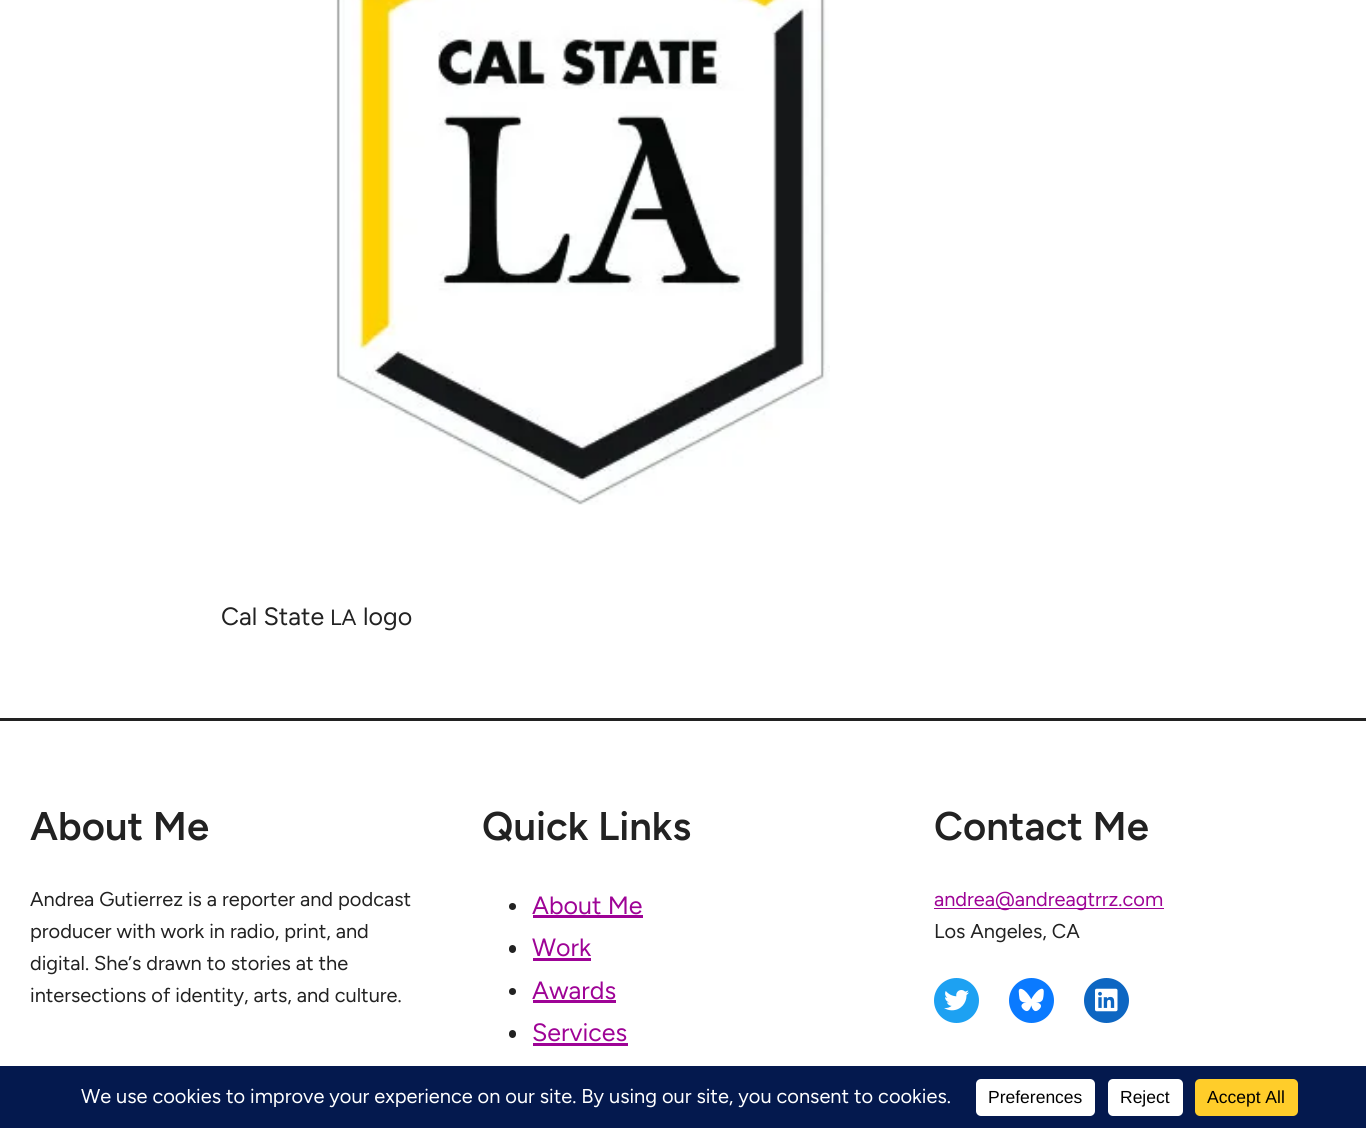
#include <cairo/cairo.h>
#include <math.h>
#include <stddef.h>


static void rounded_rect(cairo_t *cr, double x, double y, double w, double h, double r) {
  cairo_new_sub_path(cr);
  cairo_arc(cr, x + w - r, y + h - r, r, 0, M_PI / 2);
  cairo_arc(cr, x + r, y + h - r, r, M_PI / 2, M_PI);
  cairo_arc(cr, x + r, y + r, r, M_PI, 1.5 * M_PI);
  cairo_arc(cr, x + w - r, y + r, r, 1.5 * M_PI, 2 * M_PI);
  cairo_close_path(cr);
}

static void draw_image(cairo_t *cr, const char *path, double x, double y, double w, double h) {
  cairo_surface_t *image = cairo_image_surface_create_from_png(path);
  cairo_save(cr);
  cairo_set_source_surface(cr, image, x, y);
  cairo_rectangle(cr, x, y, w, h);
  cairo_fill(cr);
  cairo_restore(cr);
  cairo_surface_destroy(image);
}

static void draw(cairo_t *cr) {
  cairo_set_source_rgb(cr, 1, 1, 1);
  cairo_paint(cr);
  draw_image(cr, "images/1.png", 336, 0, 494, 505);
  cairo_set_source_rgb(cr, 34 / 255.0, 34 / 255.0, 34 / 255.0);
  cairo_rectangle(cr, 0, 718, 1366, 3);
  cairo_fill(cr);
  cairo_arc(cr, 512.5, 906.5, 3.5, 0, 2 * M_PI);
  cairo_fill(cr);
  cairo_set_source_rgb(cr, 158 / 255.0, 3 / 255.0, 150 / 255.0);
  cairo_rectangle(cr, 533, 915, 110, 3);
  cairo_fill(cr);
  cairo_set_source_rgb(cr, 34 / 255.0, 34 / 255.0, 34 / 255.0);
  rounded_rect(cr, 509, 945, 7, 8, 3.5);
  cairo_fill(cr);
  cairo_set_source_rgb(cr, 158 / 255.0, 3 / 255.0, 150 / 255.0);
  cairo_rectangle(cr, 533, 958, 58, 3);
  cairo_fill(cr);
  cairo_set_source_rgb(cr, 34 / 255.0, 34 / 255.0, 34 / 255.0);
  cairo_arc(cr, 512.5, 991.5, 3.5, 0, 2 * M_PI);
  cairo_fill(cr);
  cairo_set_source_rgb(cr, 158 / 255.0, 3 / 255.0, 150 / 255.0);
  cairo_rectangle(cr, 533, 1000, 83, 3);
  cairo_fill(cr);
  cairo_set_source_rgb(cr, 34 / 255.0, 34 / 255.0, 34 / 255.0);
  rounded_rect(cr, 509, 1030, 7, 8, 3.5);
  cairo_fill(cr);
  cairo_set_source_rgb(cr, 158 / 255.0, 3 / 255.0, 150 / 255.0);
  cairo_rectangle(cr, 533, 1043, 95, 3);
  cairo_fill(cr);
  cairo_rectangle(cr, 934, 908, 230, 1);
  cairo_fill(cr);
  cairo_set_source_rgb(cr, 29 / 255.0, 161 / 255.0, 242 / 255.0);
  cairo_arc(cr, 956.5, 1000.5, 22.5, 0, 2 * M_PI);
  cairo_fill(cr);
  draw_image(cr, "images/2.png", 944, 990, 25, 21);
  cairo_set_source_rgb(cr, 10 / 255.0, 122 / 255.0, 1);
  cairo_arc(cr, 1031.5, 1000.5, 22.5, 0, 2 * M_PI);
  cairo_fill(cr);
  draw_image(cr, "images/3.png", 1018, 988, 26, 24);
  cairo_set_source_rgb(cr, 13 / 255.0, 102 / 255.0, 194 / 255.0);
  cairo_arc(cr, 1106.5, 1000.5, 22.5, 0, 2 * M_PI);
  cairo_fill(cr);
  draw_image(cr, "images/4.png", 1095, 988, 23, 24);
  cairo_set_source_rgb(cr, 4 / 255.0, 25 / 255.0, 78 / 255.0);
  cairo_rectangle(cr, 0, 1066, 1366, 62);
  cairo_fill(cr);
  cairo_set_source_rgb(cr, 1, 1, 1);
  rounded_rect(cr, 976, 1079, 119, 37, 5);
  cairo_fill(cr);
  rounded_rect(cr, 1108, 1079, 75, 37, 5);
  cairo_fill(cr);
  cairo_set_source_rgb(cr, 1, 205 / 255.0, 42 / 255.0);
  rounded_rect(cr, 1195, 1079, 103, 37, 5);
  cairo_fill(cr);
  cairo_select_font_face(cr, "Figtree", CAIRO_FONT_SLANT_NORMAL, CAIRO_FONT_WEIGHT_NORMAL);
  cairo_set_font_size(cr, 25);
  cairo_set_source_rgb(cr, 34 / 255.0, 34 / 255.0, 34 / 255.0);
  cairo_move_to(cr, 221, 625);
  cairo_show_text(cr, "Cal State");
  cairo_set_font_size(cr, 22);
  cairo_move_to(cr, 330, 625);
  cairo_show_text(cr, "LA");
  cairo_set_font_size(cr, 25);
  cairo_move_to(cr, 363, 625);
  cairo_show_text(cr, "logo");
  cairo_select_font_face(cr, "Figtree SemiBold", CAIRO_FONT_SLANT_NORMAL, CAIRO_FONT_WEIGHT_NORMAL);
  cairo_set_font_size(cr, 40);
  cairo_move_to(cr, 30, 840);
  cairo_show_text(cr, "About Me");
  cairo_select_font_face(cr, "Figtree", CAIRO_FONT_SLANT_NORMAL, CAIRO_FONT_WEIGHT_NORMAL);
  cairo_set_font_size(cr, 20);
  cairo_move_to(cr, 30, 906);
  cairo_show_text(cr, "Andrea Gutierrez is a reporter and podcast");
  cairo_move_to(cr, 30, 938);
  cairo_show_text(cr, "producer with work in radio, print, and");
  cairo_move_to(cr, 30, 970);
  cairo_show_text(cr, "digital. She’s drawn to stories at the");
  cairo_move_to(cr, 30, 1002);
  cairo_show_text(cr, "intersections of identity, arts, and culture.");
  cairo_select_font_face(cr, "Figtree SemiBold", CAIRO_FONT_SLANT_NORMAL, CAIRO_FONT_WEIGHT_NORMAL);
  cairo_set_font_size(cr, 40);
  cairo_move_to(cr, 482, 840);
  cairo_show_text(cr, "Quick Links");
  cairo_select_font_face(cr, "Figtree", CAIRO_FONT_SLANT_NORMAL, CAIRO_FONT_WEIGHT_NORMAL);
  cairo_set_font_size(cr, 25);
  cairo_set_source_rgb(cr, 158 / 255.0, 3 / 255.0, 150 / 255.0);
  cairo_move_to(cr, 532, 914);
  cairo_show_text(cr, "About Me");
  cairo_move_to(cr, 532, 956);
  cairo_show_text(cr, "Work");
  cairo_move_to(cr, 532, 999);
  cairo_show_text(cr, "Awards");
  cairo_move_to(cr, 532, 1041);
  cairo_show_text(cr, "Services");
  cairo_select_font_face(cr, "Figtree SemiBold", CAIRO_FONT_SLANT_NORMAL, CAIRO_FONT_WEIGHT_NORMAL);
  cairo_set_font_size(cr, 40);
  cairo_set_source_rgb(cr, 34 / 255.0, 34 / 255.0, 34 / 255.0);
  cairo_move_to(cr, 934, 840);
  cairo_show_text(cr, "Contact Me");
  cairo_select_font_face(cr, "Figtree", CAIRO_FONT_SLANT_NORMAL, CAIRO_FONT_WEIGHT_NORMAL);
  cairo_set_font_size(cr, 20);
  cairo_set_source_rgb(cr, 158 / 255.0, 3 / 255.0, 150 / 255.0);
  cairo_move_to(cr, 934, 906);
  cairo_show_text(cr, "andrea@andreagtrrz.com");
  cairo_set_source_rgb(cr, 34 / 255.0, 34 / 255.0, 34 / 255.0);
  cairo_move_to(cr, 934, 938);
  cairo_show_text(cr, "Los Angeles, CA");
  cairo_set_source_rgb(cr, 1, 1, 1);
  cairo_move_to(cr, 81, 1103);
  cairo_show_text(cr, "We use cookies to improve your experience on our site. By using our site, you consent to cookies.");
  cairo_select_font_face(cr, "Liberation Sans", CAIRO_FONT_SLANT_NORMAL, CAIRO_FONT_WEIGHT_NORMAL);
  cairo_set_font_size(cr, 17.5);
  cairo_set_source_rgb(cr, 0, 0, 0);
  cairo_move_to(cr, 988, 1103);
  cairo_show_text(cr, "Preferences");
  cairo_move_to(cr, 1120, 1103);
  cairo_show_text(cr, "Reject");
  cairo_move_to(cr, 1207, 1103);
  cairo_show_text(cr, "Accept All");
}

int main(void) {
  cairo_surface_t *surface = cairo_image_surface_create(CAIRO_FORMAT_RGB24, 1366, 1128);
  cairo_t *cr = cairo_create(surface);
  cairo_font_options_t *options = cairo_font_options_create();
  cairo_font_options_set_hint_metrics(options, CAIRO_HINT_METRICS_OFF);
  cairo_font_options_set_hint_style(options, CAIRO_HINT_STYLE_NONE);
  cairo_set_font_options(cr, options);
  cairo_set_miter_limit(cr, 4);
  draw(cr);
  cairo_surface_write_to_png(surface, "out.png");
  cairo_font_options_destroy(options);
  cairo_destroy(cr);
  cairo_surface_destroy(surface);
  return 0;
}
